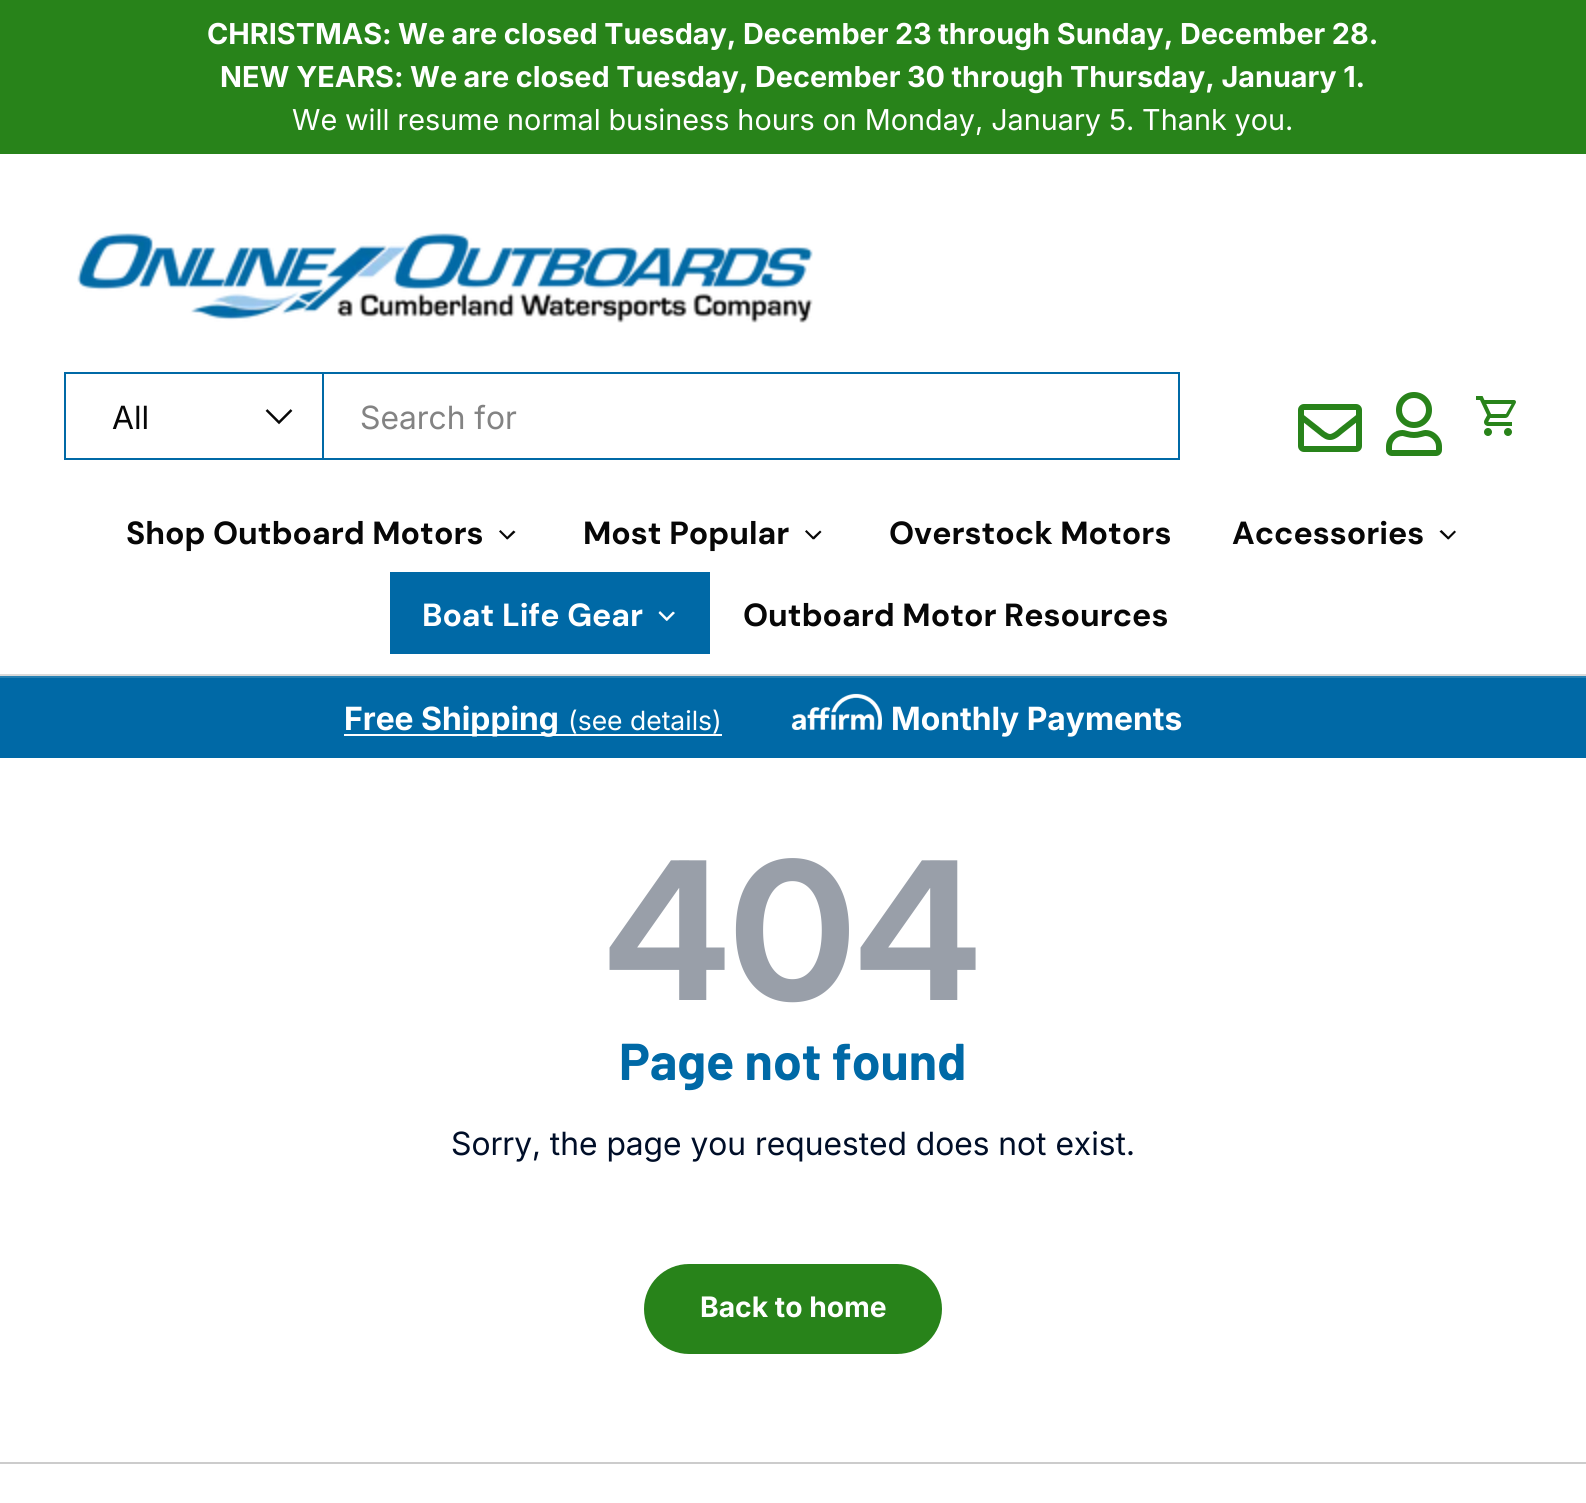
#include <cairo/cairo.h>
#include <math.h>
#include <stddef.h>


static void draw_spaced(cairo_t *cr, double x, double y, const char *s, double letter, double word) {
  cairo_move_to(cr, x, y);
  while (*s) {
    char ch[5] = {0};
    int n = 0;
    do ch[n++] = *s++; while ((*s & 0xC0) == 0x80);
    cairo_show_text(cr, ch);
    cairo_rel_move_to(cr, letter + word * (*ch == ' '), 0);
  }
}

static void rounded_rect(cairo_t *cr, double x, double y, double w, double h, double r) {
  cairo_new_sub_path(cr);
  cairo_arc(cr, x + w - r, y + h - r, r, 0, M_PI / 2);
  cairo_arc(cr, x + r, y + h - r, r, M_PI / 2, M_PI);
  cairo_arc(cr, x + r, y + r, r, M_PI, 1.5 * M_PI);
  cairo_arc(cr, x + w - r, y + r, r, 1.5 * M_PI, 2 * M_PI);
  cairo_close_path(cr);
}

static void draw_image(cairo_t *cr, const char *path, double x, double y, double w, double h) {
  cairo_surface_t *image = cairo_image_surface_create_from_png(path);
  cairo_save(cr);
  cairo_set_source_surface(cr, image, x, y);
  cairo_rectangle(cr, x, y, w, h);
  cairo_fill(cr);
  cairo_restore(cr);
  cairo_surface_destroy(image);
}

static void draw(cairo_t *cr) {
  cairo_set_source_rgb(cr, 1, 1, 1);
  cairo_paint(cr);
  cairo_set_source_rgb(cr, 40 / 255.0, 131 / 255.0, 26 / 255.0);
  cairo_rectangle(cr, 0, 0, 1586, 154);
  cairo_fill(cr);
  cairo_set_source_rgb(cr, 218 / 255.0, 218 / 255.0, 218 / 255.0);
  cairo_rectangle(cr, 0, 674, 1586, 2);
  cairo_fill(cr);
  draw_image(cr, "images/1.png", 77, 233, 736, 90);
  cairo_rectangle(cr, 65, 373, 1114, 86);
  cairo_set_source_rgb(cr, 0, 105 / 255.0, 166 / 255.0);
  cairo_stroke(cr);
  cairo_rectangle(cr, 322, 372, 2, 88);
  cairo_fill(cr);
  cairo_new_path(cr);
  cairo_move_to(cr, 291.5, 410);
  cairo_line_to(cr, 279, 422.5);
  cairo_line_to(cr, 266.5, 410);
  cairo_set_source_rgb(cr, 7 / 255.0, 7 / 255.0, 7 / 255.0);
  cairo_set_line_width(cr, 2.5);
  cairo_stroke(cr);
  draw_image(cr, "images/2.png", 1298, 404, 64, 48);
  draw_image(cr, "images/3.png", 1386, 392, 56, 64);
  draw_image(cr, "images/4.png", 1476, 396, 40, 40);
  cairo_new_path(cr);
  cairo_move_to(cr, 513.5, 530.5);
  cairo_line_to(cr, 515.5, 532);
  cairo_line_to(cr, 507.5, 539.5);
  cairo_line_to(cr, 506, 538);
  cairo_close_path(cr);
  cairo_fill(cr);
  cairo_new_path(cr);
  cairo_move_to(cr, 500.5, 530);
  cairo_line_to(cr, 508.5, 538);
  cairo_line_to(cr, 507, 539.5);
  cairo_line_to(cr, 499, 531.5);
  cairo_close_path(cr);
  cairo_fill(cr);
  cairo_new_path(cr);
  cairo_move_to(cr, 820, 530.5);
  cairo_line_to(cr, 821.5, 532);
  cairo_line_to(cr, 814, 539.5);
  cairo_line_to(cr, 812, 538);
  cairo_close_path(cr);
  cairo_fill(cr);
  cairo_new_path(cr);
  cairo_move_to(cr, 806.5, 530);
  cairo_line_to(cr, 814.5, 538);
  cairo_line_to(cr, 813, 539.5);
  cairo_line_to(cr, 805, 531.5);
  cairo_close_path(cr);
  cairo_fill(cr);
  cairo_new_path(cr);
  cairo_move_to(cr, 1454.5, 530.5);
  cairo_line_to(cr, 1456, 532);
  cairo_line_to(cr, 1448.5, 539.5);
  cairo_line_to(cr, 1447, 538);
  cairo_close_path(cr);
  cairo_fill(cr);
  cairo_new_path(cr);
  cairo_move_to(cr, 1441.5, 530);
  cairo_line_to(cr, 1449.5, 538);
  cairo_line_to(cr, 1448, 539.5);
  cairo_line_to(cr, 1439.5, 531.5);
  cairo_close_path(cr);
  cairo_fill(cr);
  cairo_set_source_rgb(cr, 0, 105 / 255.0, 166 / 255.0);
  cairo_rectangle(cr, 390, 572, 320, 82);
  cairo_fill(cr);
  cairo_set_source_rgb(cr, 1, 1, 1);
  cairo_new_path(cr);
  cairo_move_to(cr, 673, 611.5);
  cairo_line_to(cr, 675, 613);
  cairo_line_to(cr, 667, 621);
  cairo_line_to(cr, 665.5, 619);
  cairo_close_path(cr);
  cairo_fill(cr);
  cairo_new_path(cr);
  cairo_move_to(cr, 660, 611);
  cairo_line_to(cr, 668, 619);
  cairo_line_to(cr, 666.5, 621);
  cairo_line_to(cr, 658.5, 613);
  cairo_close_path(cr);
  cairo_fill(cr);
  cairo_set_source_rgb(cr, 0, 105 / 255.0, 166 / 255.0);
  cairo_rectangle(cr, 0, 678, 1586, 80);
  cairo_fill(cr);
  cairo_set_source_rgb(cr, 38 / 255.0, 128 / 255.0, 179 / 255.0);
  cairo_rectangle(cr, 0, 676, 1586, 2);
  cairo_fill(cr);
  cairo_set_source_rgb(cr, 1, 1, 1);
  cairo_rectangle(cr, 344, 734, 378, 2);
  cairo_fill(cr);
  draw_image(cr, "images/5.png", 791, 693, 91, 37);
  cairo_set_source_rgb(cr, 40 / 255.0, 131 / 255.0, 26 / 255.0);
  rounded_rect(cr, 646, 1266, 294, 86, 43);
  cairo_fill_preserve(cr);
  cairo_set_line_width(cr, 4);
  cairo_stroke(cr);
  cairo_set_source_rgb(cr, 204 / 255.0, 204 / 255.0, 204 / 255.0);
  cairo_rectangle(cr, 0, 1462, 1586, 2);
  cairo_fill(cr);
  cairo_select_font_face(cr, "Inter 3", CAIRO_FONT_SLANT_NORMAL, CAIRO_FONT_WEIGHT_BOLD);
  cairo_set_font_size(cr, 28.8);
  cairo_set_source_rgb(cr, 1, 1, 1);
  cairo_move_to(cr, 207, 44);
  cairo_show_text(cr, "CHRISTMAS:");
  draw_spaced(cr, 398, 44, "We are closed Tuesday, December 23 through Sunday, December 28.", 0, -0.25);
  cairo_move_to(cr, 220, 87);
  cairo_show_text(cr, "NEW YEARS:");
  draw_spaced(cr, 410, 87, "We are closed Tuesday, December 30 through Thursday, January 1.", 0, -0.25);
  cairo_select_font_face(cr, "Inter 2", CAIRO_FONT_SLANT_NORMAL, CAIRO_FONT_WEIGHT_NORMAL);
  draw_spaced(cr, 292, 130, "We will resume normal business hours on Monday, January 5. Thank you.", 0, -0.25);
  cairo_select_font_face(cr, "Inter", CAIRO_FONT_SLANT_NORMAL, CAIRO_FONT_WEIGHT_NORMAL);
  cairo_set_font_size(cr, 32);
  cairo_set_source_rgb(cr, 7 / 255.0, 7 / 255.0, 7 / 255.0);
  cairo_move_to(cr, 112, 429);
  cairo_show_text(cr, "All");
  cairo_set_source_rgb(cr, 131 / 255.0, 131 / 255.0, 131 / 255.0);
  cairo_move_to(cr, 360, 429);
  cairo_show_text(cr, "Search for");
  cairo_select_font_face(cr, "DM Sans", CAIRO_FONT_SLANT_NORMAL, CAIRO_FONT_WEIGHT_BOLD);
  cairo_set_source_rgb(cr, 7 / 255.0, 7 / 255.0, 7 / 255.0);
  cairo_move_to(cr, 126, 544);
  cairo_show_text(cr, "Shop Outboard Motors");
  cairo_move_to(cr, 583, 544);
  cairo_show_text(cr, "Most Popular");
  cairo_move_to(cr, 889, 544);
  cairo_show_text(cr, "Overstock Motors");
  cairo_move_to(cr, 1232, 544);
  cairo_show_text(cr, "Accessories");
  cairo_set_source_rgb(cr, 1, 1, 1);
  cairo_move_to(cr, 422, 626);
  cairo_show_text(cr, "Boat Life Gear");
  cairo_set_source_rgb(cr, 7 / 255.0, 7 / 255.0, 7 / 255.0);
  cairo_move_to(cr, 743, 626);
  cairo_show_text(cr, "Outboard Motor Resources");
  cairo_select_font_face(cr, "Inter 2", CAIRO_FONT_SLANT_NORMAL, CAIRO_FONT_WEIGHT_BOLD);
  cairo_set_source_rgb(cr, 1, 1, 1);
  cairo_move_to(cr, 344, 730);
  cairo_show_text(cr, "Free Shipping");
  cairo_select_font_face(cr, "Inter 2", CAIRO_FONT_SLANT_NORMAL, CAIRO_FONT_WEIGHT_NORMAL);
  cairo_set_font_size(cr, 26.5);
  cairo_move_to(cr, 568, 730);
  cairo_show_text(cr, "(see details)");
  cairo_select_font_face(cr, "Inter 2", CAIRO_FONT_SLANT_NORMAL, CAIRO_FONT_WEIGHT_BOLD);
  cairo_set_font_size(cr, 32);
  cairo_move_to(cr, 891, 730);
  cairo_show_text(cr, "Monthly Payments");
  cairo_select_font_face(cr, "Inter", CAIRO_FONT_SLANT_NORMAL, CAIRO_FONT_WEIGHT_BOLD);
  cairo_set_font_size(cr, 192);
  cairo_set_source_rgb(cr, 153 / 255.0, 159 / 255.0, 169 / 255.0);
  cairo_move_to(cr, 604, 1000);
  cairo_show_text(cr, "404");
  cairo_select_font_face(cr, "Barlow", CAIRO_FONT_SLANT_NORMAL, CAIRO_FONT_WEIGHT_BOLD);
  cairo_set_font_size(cr, 51.75);
  cairo_set_source_rgb(cr, 0, 105 / 255.0, 166 / 255.0);
  cairo_move_to(cr, 619, 1080);
  cairo_show_text(cr, "Page not found");
  cairo_select_font_face(cr, "Inter", CAIRO_FONT_SLANT_NORMAL, CAIRO_FONT_WEIGHT_NORMAL);
  cairo_set_font_size(cr, 32);
  cairo_set_source_rgb(cr, 0, 14 / 255.0, 40 / 255.0);
  cairo_move_to(cr, 451, 1155);
  cairo_show_text(cr, "Sorry, the page you requested does not exist.");
  cairo_select_font_face(cr, "Inter 3", CAIRO_FONT_SLANT_NORMAL, CAIRO_FONT_WEIGHT_BOLD);
  cairo_set_font_size(cr, 28.25);
  cairo_set_source_rgb(cr, 1, 1, 1);
  cairo_move_to(cr, 700, 1317);
  cairo_show_text(cr, "Back to home");
}

int main(void) {
  cairo_surface_t *surface = cairo_image_surface_create(CAIRO_FORMAT_RGB24, 1586, 1503);
  cairo_t *cr = cairo_create(surface);
  cairo_font_options_t *options = cairo_font_options_create();
  cairo_font_options_set_hint_metrics(options, CAIRO_HINT_METRICS_OFF);
  cairo_font_options_set_hint_style(options, CAIRO_HINT_STYLE_NONE);
  cairo_set_font_options(cr, options);
  cairo_set_miter_limit(cr, 4);
  draw(cr);
  cairo_surface_write_to_png(surface, "out.png");
  cairo_font_options_destroy(options);
  cairo_destroy(cr);
  cairo_surface_destroy(surface);
  return 0;
}
